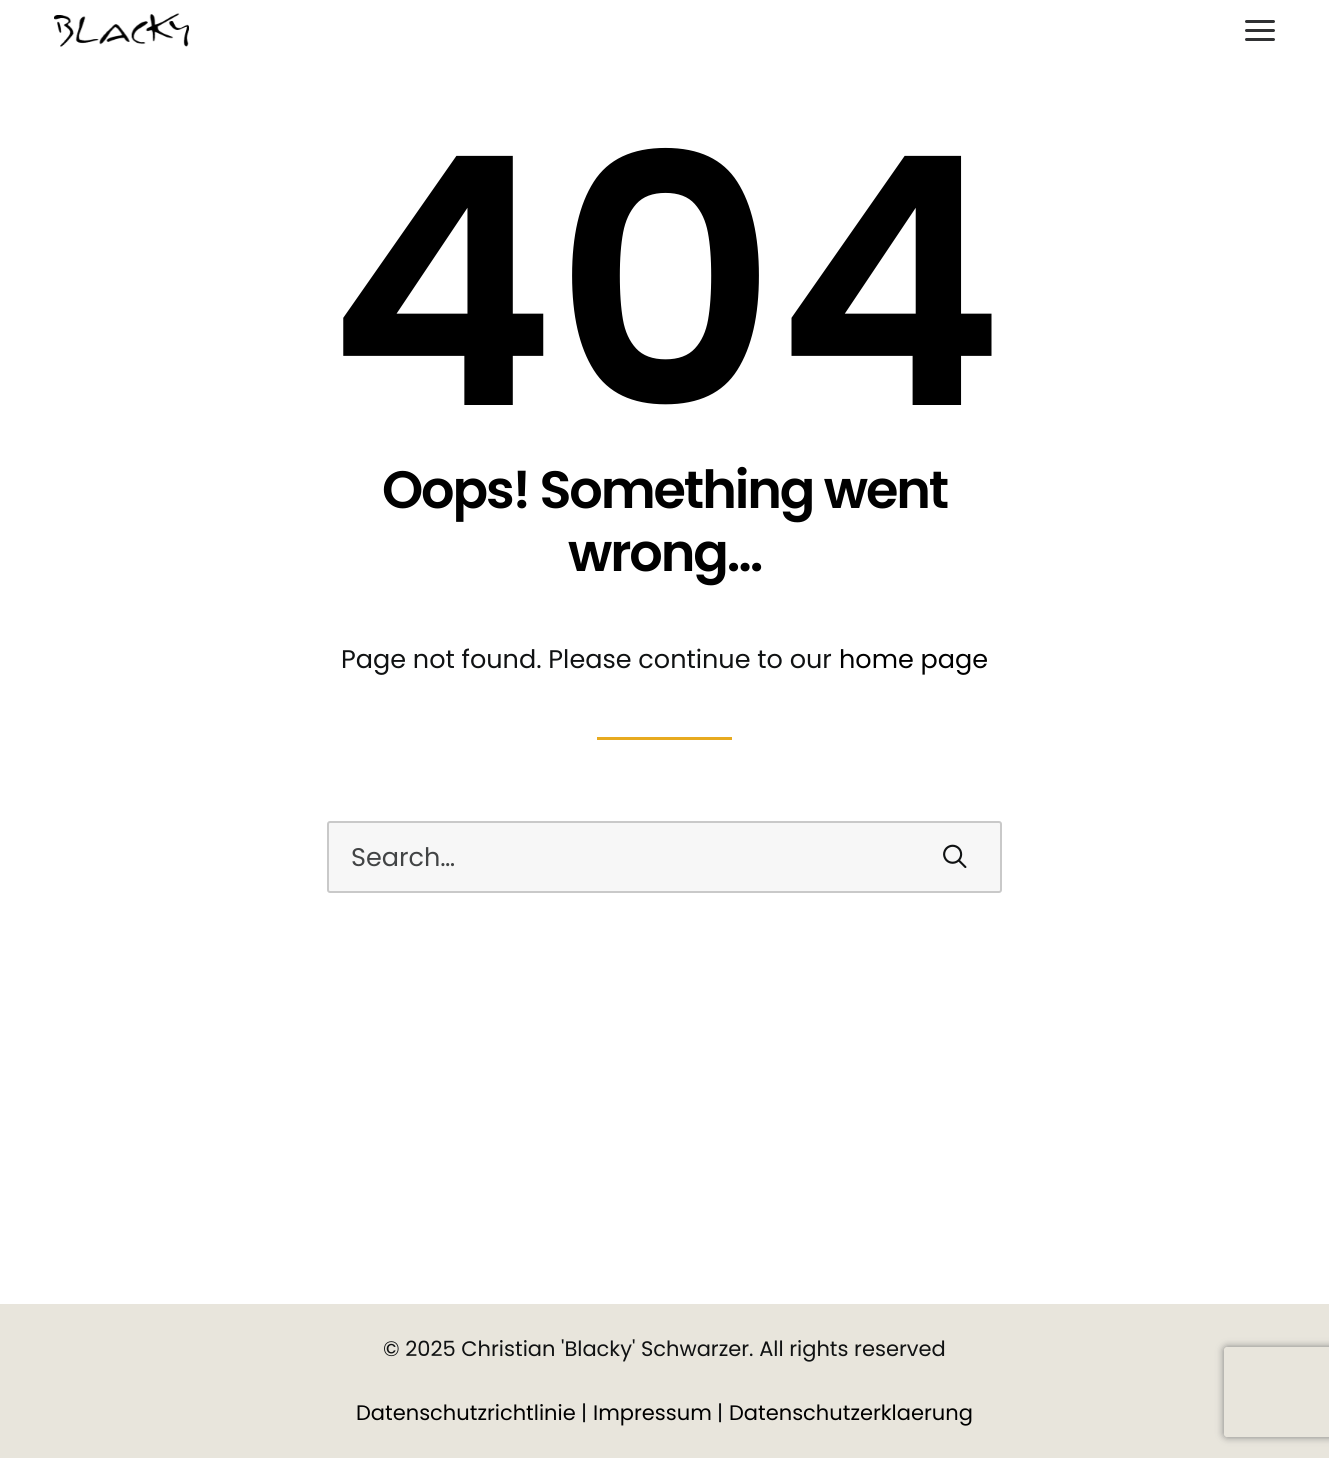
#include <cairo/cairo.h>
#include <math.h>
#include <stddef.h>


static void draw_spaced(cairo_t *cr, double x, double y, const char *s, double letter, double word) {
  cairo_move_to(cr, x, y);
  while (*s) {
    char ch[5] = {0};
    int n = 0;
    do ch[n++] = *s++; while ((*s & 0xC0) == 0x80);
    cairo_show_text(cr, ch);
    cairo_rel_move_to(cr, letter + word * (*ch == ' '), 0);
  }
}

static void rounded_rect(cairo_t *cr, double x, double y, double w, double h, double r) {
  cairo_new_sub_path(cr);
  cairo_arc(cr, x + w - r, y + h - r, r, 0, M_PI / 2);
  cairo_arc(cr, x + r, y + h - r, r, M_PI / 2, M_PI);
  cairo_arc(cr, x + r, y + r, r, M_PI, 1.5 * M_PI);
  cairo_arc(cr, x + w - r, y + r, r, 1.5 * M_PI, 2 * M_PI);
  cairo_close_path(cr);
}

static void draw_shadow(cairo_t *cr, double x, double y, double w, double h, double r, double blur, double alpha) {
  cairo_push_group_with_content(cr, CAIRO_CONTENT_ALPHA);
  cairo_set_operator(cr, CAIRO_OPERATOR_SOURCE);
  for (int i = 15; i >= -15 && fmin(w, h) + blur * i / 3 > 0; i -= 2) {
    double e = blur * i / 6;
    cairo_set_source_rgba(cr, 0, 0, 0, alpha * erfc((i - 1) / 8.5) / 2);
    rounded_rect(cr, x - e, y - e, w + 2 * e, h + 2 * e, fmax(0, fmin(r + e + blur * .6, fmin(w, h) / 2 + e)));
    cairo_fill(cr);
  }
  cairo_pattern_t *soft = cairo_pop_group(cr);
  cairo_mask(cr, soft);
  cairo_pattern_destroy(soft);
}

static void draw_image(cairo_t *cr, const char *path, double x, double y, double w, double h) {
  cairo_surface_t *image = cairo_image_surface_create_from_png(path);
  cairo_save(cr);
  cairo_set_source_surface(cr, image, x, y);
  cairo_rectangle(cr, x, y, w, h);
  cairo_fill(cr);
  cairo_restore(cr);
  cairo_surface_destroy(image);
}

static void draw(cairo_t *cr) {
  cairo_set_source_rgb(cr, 1, 1, 1);
  cairo_paint(cr);
  draw_image(cr, "images/1.png", 54, 13, 135, 34);
  cairo_set_source_rgb(cr, 48 / 255.0, 49 / 255.0, 51 / 255.0);
  rounded_rect(cr, 1245, 29, 30, 3, 1.5);
  cairo_fill(cr);
  rounded_rect(cr, 1245, 20, 30, 3, 1.5);
  cairo_fill(cr);
  rounded_rect(cr, 1245, 38, 30, 3, 1.5);
  cairo_fill(cr);
  cairo_set_source_rgb(cr, 231 / 255.0, 170 / 255.0, 31 / 255.0);
  cairo_rectangle(cr, 597, 737, 135, 3);
  cairo_fill(cr);
  cairo_set_source_rgb(cr, 247 / 255.0, 247 / 255.0, 247 / 255.0);
  rounded_rect(cr, 327, 821, 675, 72, 3);
  cairo_fill(cr);
  rounded_rect(cr, 328, 822, 673, 70, 2);
  cairo_set_source_rgba(cr, 0, 0, 0, 0.19);
  cairo_stroke(cr);
  draw_image(cr, "images/2.png", 943, 844, 24, 24);
  cairo_set_source_rgb(cr, 232 / 255.0, 229 / 255.0, 220 / 255.0);
  cairo_rectangle(cr, 0, 1304, 1329, 154);
  cairo_fill(cr);
  cairo_save(cr);
  cairo_set_fill_rule(cr, CAIRO_FILL_RULE_EVEN_ODD);
  cairo_new_path(cr);
  cairo_move_to(cr, 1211, 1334);
  cairo_line_to(cr, 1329, 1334);
  cairo_line_to(cr, 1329, 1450);
  cairo_line_to(cr, 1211, 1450);
  cairo_close_path(cr);
  cairo_move_to(cr, 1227, 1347);
  cairo_line_to(cr, 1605, 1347);
  cairo_curve_to(cr, 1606.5, 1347, 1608, 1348.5, 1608, 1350);
  cairo_line_to(cr, 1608, 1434);
  cairo_curve_to(cr, 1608, 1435.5, 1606.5, 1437, 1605, 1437);
  cairo_line_to(cr, 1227, 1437);
  cairo_curve_to(cr, 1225.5, 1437, 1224, 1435.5, 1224, 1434);
  cairo_line_to(cr, 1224, 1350);
  cairo_curve_to(cr, 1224, 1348.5, 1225.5, 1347, 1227, 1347);
  cairo_close_path(cr);
  cairo_clip(cr);
  cairo_set_source_rgb(cr, 128 / 255.0, 128 / 255.0, 128 / 255.0);
  draw_shadow(cr, 1224, 1347, 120, 90, 3, 4, 1);
  cairo_restore(cr);
  cairo_select_font_face(cr, "Poppins SemiBold", CAIRO_FONT_SLANT_NORMAL, CAIRO_FONT_WEIGHT_NORMAL);
  cairo_set_font_size(cr, 346);
  cairo_set_source_rgb(cr, 0, 0, 0);
  draw_spaced(cr, 327, 405, "404", -2, 0);
  cairo_set_font_size(cr, 52.5);
  draw_spaced(cr, 382, 508, "Oops! Something went", -2.1, 0);
  draw_spaced(cr, 568, 571, "wrong…", -2.1, 0);
  cairo_select_font_face(cr, "Poppins", CAIRO_FONT_SLANT_NORMAL, CAIRO_FONT_WEIGHT_NORMAL);
  cairo_set_font_size(cr, 25.5);
  cairo_set_source_rgb(cr, 16 / 255.0, 18 / 255.0, 19 / 255.0);
  cairo_move_to(cr, 341, 668);
  cairo_show_text(cr, "Page not found. Please continue to our");
  cairo_set_source_rgb(cr, 0, 0, 0);
  cairo_move_to(cr, 839, 668);
  cairo_show_text(cr, "home page");
  cairo_set_source_rgb(cr, 66 / 255.0, 68 / 255.0, 69 / 255.0);
  cairo_move_to(cr, 351, 866);
  cairo_show_text(cr, "Search…");
  cairo_set_font_size(cr, 21);
  cairo_set_source_rgb(cr, 16 / 255.0, 18 / 255.0, 19 / 255.0);
  cairo_move_to(cr, 383, 1356);
  cairo_show_text(cr, "© 2025 Christian 'Blacky' Schwarzer. All rights reserved");
  cairo_set_source_rgb(cr, 0, 0, 0);
  cairo_move_to(cr, 356, 1420);
  cairo_show_text(cr, "Datenschutzrichtlinie");
  cairo_set_source_rgb(cr, 16 / 255.0, 18 / 255.0, 19 / 255.0);
  cairo_move_to(cr, 581, 1420);
  cairo_show_text(cr, "|");
  cairo_set_source_rgb(cr, 0, 0, 0);
  cairo_move_to(cr, 593, 1420);
  cairo_show_text(cr, "Impressum");
  cairo_set_source_rgb(cr, 16 / 255.0, 18 / 255.0, 19 / 255.0);
  cairo_move_to(cr, 717, 1420);
  cairo_show_text(cr, "|");
  cairo_set_source_rgb(cr, 0, 0, 0);
  cairo_move_to(cr, 729, 1420);
  cairo_show_text(cr, "Datenschutzerklaerung");
}

int main(void) {
  cairo_surface_t *surface = cairo_image_surface_create(CAIRO_FORMAT_RGB24, 1329, 1458);
  cairo_t *cr = cairo_create(surface);
  cairo_font_options_t *options = cairo_font_options_create();
  cairo_font_options_set_hint_metrics(options, CAIRO_HINT_METRICS_OFF);
  cairo_font_options_set_hint_style(options, CAIRO_HINT_STYLE_NONE);
  cairo_set_font_options(cr, options);
  cairo_set_miter_limit(cr, 4);
  draw(cr);
  cairo_surface_write_to_png(surface, "out.png");
  cairo_font_options_destroy(options);
  cairo_destroy(cr);
  cairo_surface_destroy(surface);
  return 0;
}
